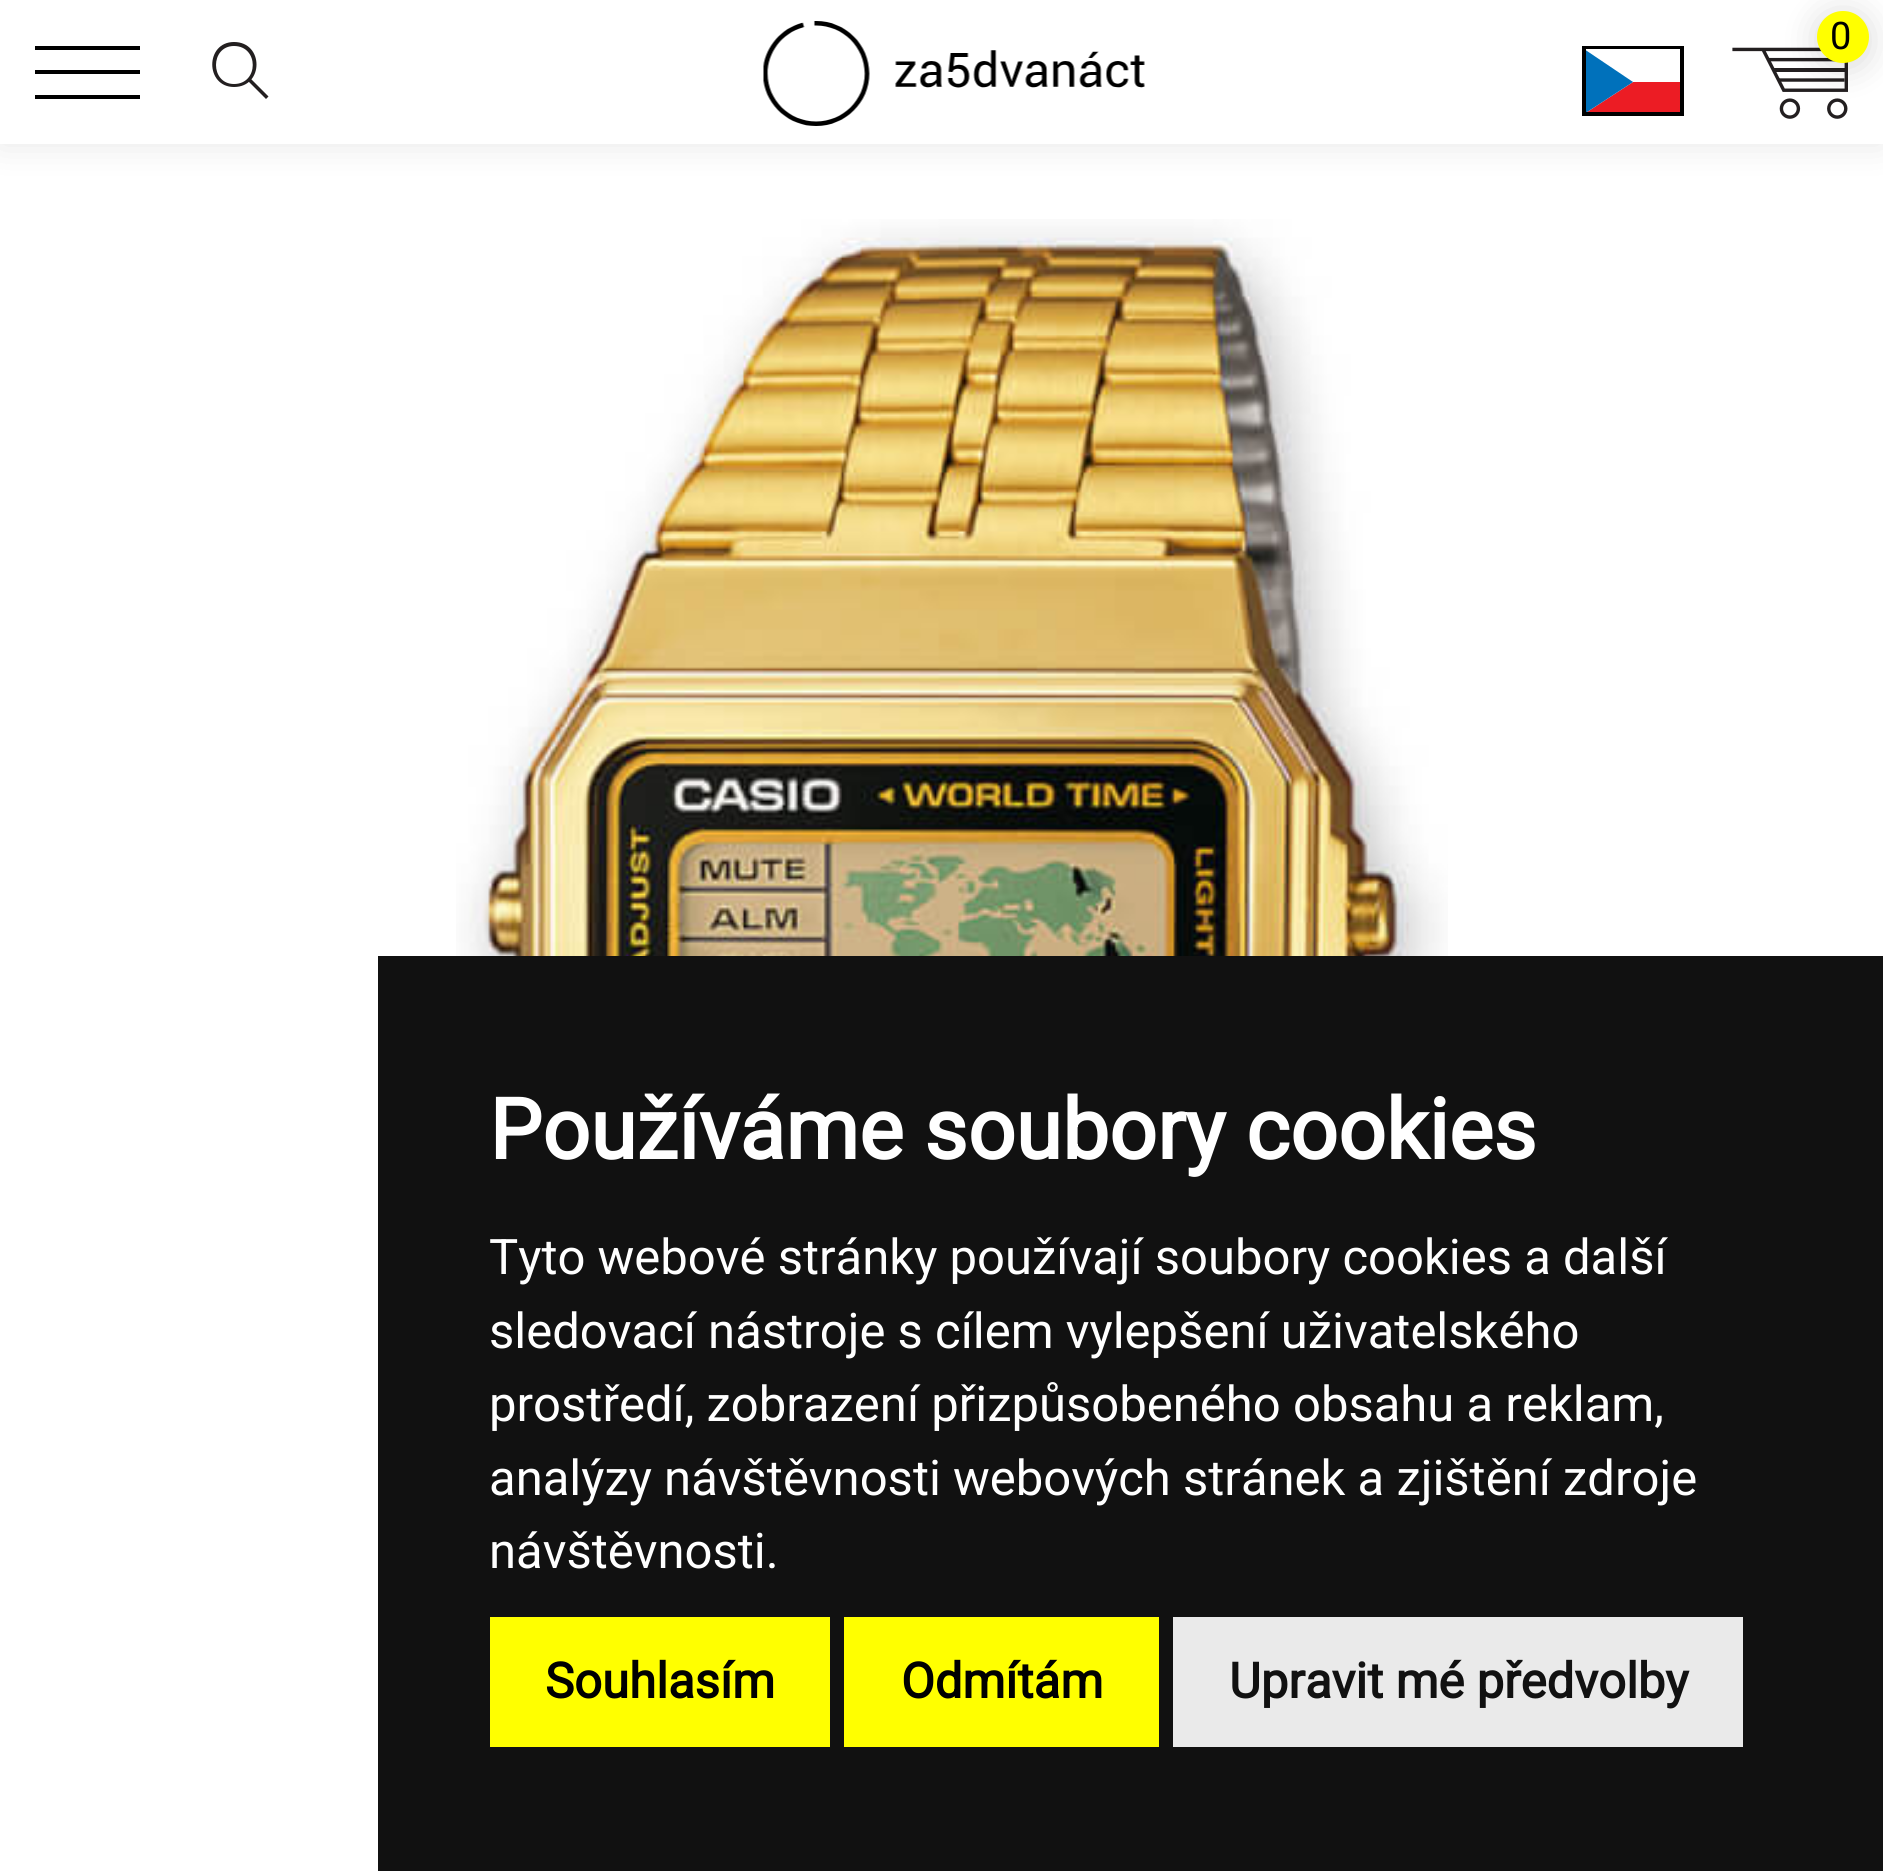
#include <cairo/cairo.h>
#include <math.h>
#include <stddef.h>


static void draw_spaced(cairo_t *cr, double x, double y, const char *s, double letter, double word) {
  cairo_move_to(cr, x, y);
  while (*s) {
    char ch[5] = {0};
    int n = 0;
    do ch[n++] = *s++; while ((*s & 0xC0) == 0x80);
    cairo_show_text(cr, ch);
    cairo_rel_move_to(cr, letter + word * (*ch == ' '), 0);
  }
}

static void rounded_rect(cairo_t *cr, double x, double y, double w, double h, double r) {
  cairo_new_sub_path(cr);
  cairo_arc(cr, x + w - r, y + h - r, r, 0, M_PI / 2);
  cairo_arc(cr, x + r, y + h - r, r, M_PI / 2, M_PI);
  cairo_arc(cr, x + r, y + r, r, M_PI, 1.5 * M_PI);
  cairo_arc(cr, x + w - r, y + r, r, 1.5 * M_PI, 2 * M_PI);
  cairo_close_path(cr);
}

static void draw_shadow(cairo_t *cr, double x, double y, double w, double h, double r, double blur, double alpha) {
  cairo_push_group_with_content(cr, CAIRO_CONTENT_ALPHA);
  cairo_set_operator(cr, CAIRO_OPERATOR_SOURCE);
  for (int i = 15; i >= -15 && fmin(w, h) + blur * i / 3 > 0; i -= 2) {
    double e = blur * i / 6;
    cairo_set_source_rgba(cr, 0, 0, 0, alpha * erfc((i - 1) / 8.5) / 2);
    rounded_rect(cr, x - e, y - e, w + 2 * e, h + 2 * e, fmax(0, fmin(r + e + blur * .6, fmin(w, h) / 2 + e)));
    cairo_fill(cr);
  }
  cairo_pattern_t *soft = cairo_pop_group(cr);
  cairo_mask(cr, soft);
  cairo_pattern_destroy(soft);
}

static void draw_image(cairo_t *cr, const char *path, double x, double y, double w, double h) {
  cairo_surface_t *image = cairo_image_surface_create_from_png(path);
  cairo_save(cr);
  cairo_set_source_surface(cr, image, x, y);
  cairo_rectangle(cr, x, y, w, h);
  cairo_fill(cr);
  cairo_restore(cr);
  cairo_surface_destroy(image);
}

static void draw(cairo_t *cr) {
  cairo_set_source_rgb(cr, 1, 1, 1);
  cairo_paint(cr);
  cairo_set_source_rgb(cr, 0, 0, 0);
  draw_shadow(cr, 0, 0, 1883, 144, 0, 17.5, 0.1);
  cairo_set_source_rgb(cr, 1, 1, 1);
  cairo_rectangle(cr, 0, 0, 1883, 144);
  cairo_fill(cr);
  draw_image(cr, "images/1.png", 763, 21, 382, 105);
  draw_image(cr, "images/2.png", 1732, 47, 116, 72);
  cairo_set_source_rgb(cr, 0, 0, 0);
  draw_shadow(cr, 1817, 14, 52, 53, 26, 17.5, 0.15);
  cairo_set_source_rgb(cr, 1, 1, 0);
  cairo_arc(cr, 1843, 37, 26, 0, 2 * M_PI);
  cairo_fill(cr);
  cairo_rectangle(cr, 1584, 48, 98, 66);
  cairo_set_source_rgb(cr, 0, 0, 0);
  cairo_set_line_width(cr, 4);
  cairo_stroke(cr);
  cairo_save(cr);
  cairo_rectangle(cr, 1586, 49, 94, 63);
  cairo_clip(cr);
  cairo_set_source_rgb(cr, 1, 1, 1);
  cairo_new_path(cr);
  cairo_move_to(cr, 1682, 82);
  cairo_line_to(cr, 1682, 49);
  cairo_line_to(cr, 1584, 49);
  cairo_line_to(cr, 1633, 82);
  cairo_close_path(cr);
  cairo_fill(cr);
  cairo_set_source_rgb(cr, 236 / 255.0, 28 / 255.0, 36 / 255.0);
  cairo_new_path(cr);
  cairo_move_to(cr, 1633, 82);
  cairo_line_to(cr, 1584, 114);
  cairo_line_to(cr, 1682, 114);
  cairo_line_to(cr, 1682, 82);
  cairo_close_path(cr);
  cairo_fill(cr);
  cairo_set_source_rgb(cr, 0, 113 / 255.0, 187 / 255.0);
  cairo_new_path(cr);
  cairo_move_to(cr, 1584, 49);
  cairo_line_to(cr, 1584, 114);
  cairo_line_to(cr, 1633, 82);
  cairo_close_path(cr);
  cairo_fill(cr);
  cairo_restore(cr);
  cairo_rectangle(cr, 35, 46, 105, 4);
  cairo_fill(cr);
  cairo_rectangle(cr, 35, 70, 105, 4);
  cairo_fill(cr);
  cairo_rectangle(cr, 35, 95, 105, 4);
  cairo_fill(cr);
  cairo_set_source_rgb(cr, 35 / 255.0, 31 / 255.0, 32 / 255.0);
  cairo_new_path(cr);
  cairo_move_to(cr, 266, 99);
  cairo_line_to(cr, 247, 80);
  cairo_line_to(cr, 249.5, 77.5);
  cairo_line_to(cr, 268.5, 96.5);
  cairo_close_path(cr);
  cairo_fill(cr);
  cairo_new_path(cr);
  cairo_move_to(cr, 234, 87);
  cairo_curve_to(cr, 205, 87, 205, 42, 234, 42);
  cairo_curve_to(cr, 264, 42, 264, 87, 234, 87);
  cairo_close_path(cr);
  cairo_move_to(cr, 234, 46);
  cairo_curve_to(cr, 210, 46, 210, 84, 234, 84);
  cairo_curve_to(cr, 259, 84, 259, 46, 234, 46);
  cairo_close_path(cr);
  cairo_fill(cr);
  draw_image(cr, "images/3.png", 456, 219, 992, 737);
  cairo_set_source_rgb(cr, 17 / 255.0, 17 / 255.0, 17 / 255.0);
  cairo_rectangle(cr, 378, 956, 1505, 915);
  cairo_fill(cr);
  cairo_set_source_rgb(cr, 1, 1, 0);
  cairo_rectangle(cr, 490, 1617, 340, 130);
  cairo_fill(cr);
  cairo_rectangle(cr, 844, 1617, 315, 130);
  cairo_fill(cr);
  cairo_set_source_rgb(cr, 234 / 255.0, 234 / 255.0, 234 / 255.0);
  cairo_rectangle(cr, 1173, 1617, 570, 130);
  cairo_fill(cr);
  cairo_select_font_face(cr, "Roboto", CAIRO_FONT_SLANT_NORMAL, CAIRO_FONT_WEIGHT_NORMAL);
  cairo_set_font_size(cr, 38);
  cairo_set_source_rgb(cr, 0, 0, 0);
  draw_spaced(cr, 1830, 49, "0", 4, 0);
  cairo_select_font_face(cr, "Roboto", CAIRO_FONT_SLANT_NORMAL, CAIRO_FONT_WEIGHT_BOLD);
  cairo_set_font_size(cr, 84);
  cairo_set_source_rgb(cr, 1, 1, 1);
  cairo_move_to(cr, 489, 1159);
  cairo_show_text(cr, "Používáme soubory cookies");
  cairo_select_font_face(cr, "Roboto", CAIRO_FONT_SLANT_NORMAL, CAIRO_FONT_WEIGHT_NORMAL);
  cairo_set_font_size(cr, 49);
  cairo_move_to(cr, 489, 1274);
  cairo_show_text(cr, "Tyto webové stránky používají soubory cookies a další");
  cairo_move_to(cr, 489, 1348);
  cairo_show_text(cr, "sledovací nástroje s cílem vylepšení uživatelského");
  cairo_move_to(cr, 489, 1421);
  cairo_show_text(cr, "prostředí, zobrazení přizpůsobeného obsahu a reklam,");
  cairo_move_to(cr, 489, 1495);
  cairo_show_text(cr, "analýzy návštěvnosti webových stránek a zjištění zdroje");
  cairo_move_to(cr, 489, 1568);
  cairo_show_text(cr, "návštěvnosti.");
  cairo_select_font_face(cr, "Roboto", CAIRO_FONT_SLANT_NORMAL, CAIRO_FONT_WEIGHT_BOLD);
  cairo_set_source_rgb(cr, 0, 0, 0);
  cairo_move_to(cr, 545, 1698);
  cairo_show_text(cr, "Souhlasím");
  cairo_move_to(cr, 901, 1698);
  cairo_show_text(cr, "Odmítám");
  cairo_set_source_rgb(cr, 17 / 255.0, 17 / 255.0, 17 / 255.0);
  cairo_move_to(cr, 1229, 1698);
  cairo_show_text(cr, "Upravit mé předvolby");
}

int main(void) {
  cairo_surface_t *surface = cairo_image_surface_create(CAIRO_FORMAT_RGB24, 1883, 1871);
  cairo_t *cr = cairo_create(surface);
  cairo_font_options_t *options = cairo_font_options_create();
  cairo_font_options_set_hint_metrics(options, CAIRO_HINT_METRICS_OFF);
  cairo_font_options_set_hint_style(options, CAIRO_HINT_STYLE_NONE);
  cairo_set_font_options(cr, options);
  cairo_set_miter_limit(cr, 4);
  draw(cr);
  cairo_surface_write_to_png(surface, "out.png");
  cairo_font_options_destroy(options);
  cairo_destroy(cr);
  cairo_surface_destroy(surface);
  return 0;
}
